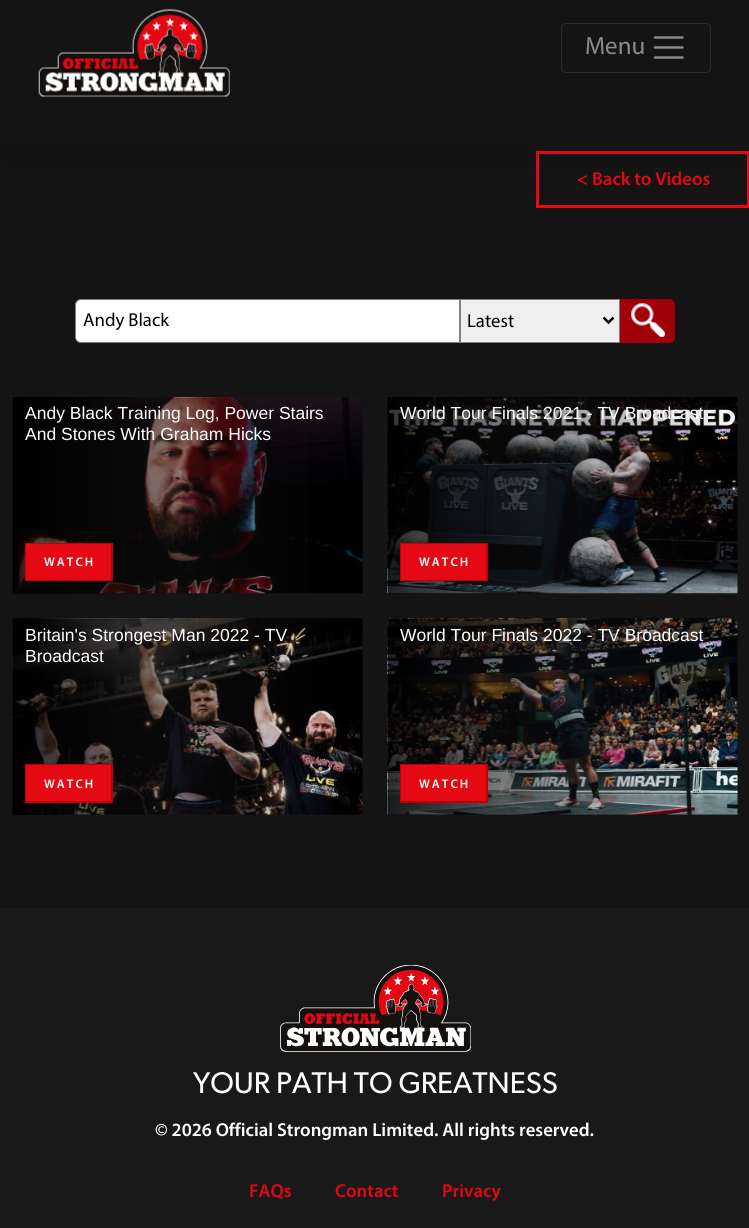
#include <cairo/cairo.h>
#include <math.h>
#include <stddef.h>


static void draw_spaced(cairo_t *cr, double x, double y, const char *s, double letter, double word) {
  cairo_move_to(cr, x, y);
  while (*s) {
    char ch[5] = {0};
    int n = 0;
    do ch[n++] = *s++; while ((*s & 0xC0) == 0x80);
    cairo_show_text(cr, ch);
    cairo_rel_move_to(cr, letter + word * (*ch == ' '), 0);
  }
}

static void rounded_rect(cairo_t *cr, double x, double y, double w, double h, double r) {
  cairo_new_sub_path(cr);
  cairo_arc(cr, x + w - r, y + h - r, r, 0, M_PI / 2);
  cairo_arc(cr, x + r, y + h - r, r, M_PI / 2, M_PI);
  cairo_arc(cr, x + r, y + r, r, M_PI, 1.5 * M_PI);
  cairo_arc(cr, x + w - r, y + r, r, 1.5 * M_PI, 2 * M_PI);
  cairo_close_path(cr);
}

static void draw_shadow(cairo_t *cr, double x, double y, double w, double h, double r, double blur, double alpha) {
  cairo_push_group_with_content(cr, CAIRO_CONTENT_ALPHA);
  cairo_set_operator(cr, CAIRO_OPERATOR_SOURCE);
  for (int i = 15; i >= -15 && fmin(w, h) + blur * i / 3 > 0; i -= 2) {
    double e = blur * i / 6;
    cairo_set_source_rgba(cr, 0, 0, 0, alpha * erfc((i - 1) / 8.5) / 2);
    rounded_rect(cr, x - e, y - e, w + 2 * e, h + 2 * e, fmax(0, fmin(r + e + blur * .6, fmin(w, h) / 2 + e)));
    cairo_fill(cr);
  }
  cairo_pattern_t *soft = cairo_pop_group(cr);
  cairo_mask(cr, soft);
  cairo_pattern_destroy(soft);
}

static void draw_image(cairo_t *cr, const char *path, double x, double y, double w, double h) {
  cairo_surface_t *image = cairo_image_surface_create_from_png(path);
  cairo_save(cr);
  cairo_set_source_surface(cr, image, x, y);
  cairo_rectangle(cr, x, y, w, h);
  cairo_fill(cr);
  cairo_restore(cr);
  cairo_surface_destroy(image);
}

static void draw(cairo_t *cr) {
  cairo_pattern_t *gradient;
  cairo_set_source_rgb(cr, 20 / 255.0, 20 / 255.0, 20 / 255.0);
  cairo_paint(cr);
  cairo_rectangle(cr, 537.5, 152.5, 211, 54);
  cairo_set_source_rgb(cr, 229 / 255.0, 9 / 255.0, 20 / 255.0);
  cairo_set_line_width(cr, 3);
  cairo_stroke(cr);
  cairo_save(cr);
  cairo_rectangle(cr, 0, 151, 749, 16);
  cairo_clip(cr);
  cairo_set_source_rgb(cr, 0, 0, 0);
  draw_shadow(cr, 0, -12, 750, 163, 0, 19, 0.1);
  cairo_restore(cr);
  draw_image(cr, "images/1.png", 38, 9, 192, 88);
  rounded_rect(cr, 561.5, 23.5, 149, 49, 4.5);
  cairo_set_source_rgb(cr, 44 / 255.0, 44 / 255.0, 44 / 255.0);
  cairo_set_line_width(cr, 1);
  cairo_stroke(cr);
  cairo_new_path(cr);
  cairo_move_to(cr, 655, 37.5);
  cairo_line_to(cr, 682.5, 37.5);
  cairo_move_to(cr, 655, 47.5);
  cairo_line_to(cr, 682.5, 47.5);
  cairo_move_to(cr, 655, 57.5);
  cairo_line_to(cr, 682.5, 57.5);
  cairo_set_source_rgb(cr, 138 / 255.0, 138 / 255.0, 138 / 255.0);
  cairo_set_line_width(cr, 2.5);
  cairo_set_line_cap(cr, CAIRO_LINE_CAP_ROUND);
  cairo_stroke(cr);
  cairo_set_source_rgb(cr, 1, 1, 1);
  cairo_new_path(cr);
  cairo_move_to(cr, 81, 299.5);
  cairo_line_to(cr, 459.5, 299.5);
  cairo_line_to(cr, 459.5, 342.5);
  cairo_line_to(cr, 81, 342.5);
  cairo_curve_to(cr, 78, 342.5, 75.5, 340, 75.5, 337);
  cairo_line_to(cr, 75.5, 305);
  cairo_curve_to(cr, 75.5, 302, 78, 299.5, 81, 299.5);
  cairo_close_path(cr);
  cairo_fill_preserve(cr);
  cairo_set_source_rgb(cr, 128 / 255.0, 128 / 255.0, 128 / 255.0);
  cairo_set_line_width(cr, 1);
  cairo_set_line_cap(cr, CAIRO_LINE_CAP_BUTT);
  cairo_stroke(cr);
  cairo_set_source_rgb(cr, 239 / 255.0, 239 / 255.0, 239 / 255.0);
  cairo_rectangle(cr, 460.5, 299.5, 159, 43);
  cairo_fill_preserve(cr);
  cairo_set_source_rgb(cr, 128 / 255.0, 128 / 255.0, 128 / 255.0);
  cairo_stroke(cr);
  cairo_new_path(cr);
  cairo_move_to(cr, 603.5, 317.5);
  cairo_line_to(cr, 608.5, 322.5);
  cairo_line_to(cr, 613.5, 317.5);
  cairo_set_source_rgb(cr, 0, 0, 0);
  cairo_set_line_width(cr, 2.5);
  cairo_stroke(cr);
  cairo_set_source_rgb(cr, 160 / 255.0, 0, 10 / 255.0);
  cairo_new_path(cr);
  cairo_move_to(cr, 620, 299);
  cairo_line_to(cr, 669, 299);
  cairo_curve_to(cr, 672.5, 299, 675, 301.5, 675, 305);
  cairo_line_to(cr, 675, 337);
  cairo_curve_to(cr, 675, 340.5, 672.5, 343, 669, 343);
  cairo_line_to(cr, 620, 343);
  cairo_close_path(cr);
  cairo_fill(cr);
  draw_image(cr, "images/2.png", 631, 303, 34, 34);
  draw_image(cr, "images/3.png", 12, 397, 351, 197);
  gradient = cairo_pattern_create_linear(13, 496, 363, 496);
  cairo_pattern_add_color_stop_rgba(gradient, 0, 0, 0, 0, 0.8);
  cairo_pattern_add_color_stop_rgba(gradient, 0.5, 20 / 255.0, 20 / 255.0, 20 / 255.0, 0.4);
  cairo_pattern_add_color_stop_rgba(gradient, 1, 20 / 255.0, 20 / 255.0, 20 / 255.0, 0);
  cairo_set_source(cr, gradient);
  cairo_pattern_destroy(gradient);
  cairo_rectangle(cr, 13, 398, 295, 196);
  cairo_fill(cr);
  cairo_set_source_rgb(cr, 191 / 255.0, 0, 10 / 255.0);
  cairo_rectangle(cr, 25, 543, 88, 38);
  cairo_fill(cr);
  cairo_set_source_rgb(cr, 229 / 255.0, 9 / 255.0, 20 / 255.0);
  cairo_rectangle(cr, 26, 544, 85, 36);
  cairo_fill(cr);
  draw_image(cr, "images/4.png", 387, 397, 351, 197);
  gradient = cairo_pattern_create_linear(388, 496, 738, 496);
  cairo_pattern_add_color_stop_rgba(gradient, 0, 0, 0, 0, 0.8);
  cairo_pattern_add_color_stop_rgba(gradient, 0.5, 20 / 255.0, 20 / 255.0, 20 / 255.0, 0.4);
  cairo_pattern_add_color_stop_rgba(gradient, 1, 20 / 255.0, 20 / 255.0, 20 / 255.0, 0);
  cairo_set_source(cr, gradient);
  cairo_pattern_destroy(gradient);
  cairo_rectangle(cr, 388, 398, 341, 196);
  cairo_fill(cr);
  cairo_set_source_rgb(cr, 191 / 255.0, 0, 10 / 255.0);
  cairo_rectangle(cr, 400, 543, 88, 38);
  cairo_fill(cr);
  cairo_set_source_rgb(cr, 229 / 255.0, 9 / 255.0, 20 / 255.0);
  cairo_rectangle(cr, 401, 544, 85, 36);
  cairo_fill(cr);
  draw_image(cr, "images/5.png", 12, 618, 351, 197);
  gradient = cairo_pattern_create_linear(13, 717, 363, 717);
  cairo_pattern_add_color_stop_rgba(gradient, 0, 0, 0, 0, 0.8);
  cairo_pattern_add_color_stop_rgba(gradient, 0.5, 20 / 255.0, 20 / 255.0, 20 / 255.0, 0.4);
  cairo_pattern_add_color_stop_rgba(gradient, 1, 20 / 255.0, 20 / 255.0, 20 / 255.0, 0);
  cairo_set_source(cr, gradient);
  cairo_pattern_destroy(gradient);
  cairo_rectangle(cr, 13, 619, 334, 196);
  cairo_fill(cr);
  cairo_set_source_rgb(cr, 191 / 255.0, 0, 10 / 255.0);
  cairo_rectangle(cr, 25, 764, 88, 39);
  cairo_fill(cr);
  cairo_set_source_rgb(cr, 229 / 255.0, 9 / 255.0, 20 / 255.0);
  cairo_rectangle(cr, 26, 765, 85, 36);
  cairo_fill(cr);
  draw_image(cr, "images/6.png", 387, 618, 351, 197);
  gradient = cairo_pattern_create_linear(388, 717, 738, 717);
  cairo_pattern_add_color_stop_rgba(gradient, 0, 0, 0, 0, 0.8);
  cairo_pattern_add_color_stop_rgba(gradient, 0.5, 20 / 255.0, 20 / 255.0, 20 / 255.0, 0.4);
  cairo_pattern_add_color_stop_rgba(gradient, 1, 20 / 255.0, 20 / 255.0, 20 / 255.0, 0);
  cairo_set_source(cr, gradient);
  cairo_pattern_destroy(gradient);
  cairo_rectangle(cr, 388, 619, 341, 196);
  cairo_fill(cr);
  cairo_set_source_rgb(cr, 191 / 255.0, 0, 10 / 255.0);
  cairo_rectangle(cr, 400, 764, 88, 39);
  cairo_fill(cr);
  cairo_set_source_rgb(cr, 229 / 255.0, 9 / 255.0, 20 / 255.0);
  cairo_rectangle(cr, 401, 765, 85, 36);
  cairo_fill(cr);
  cairo_set_source_rgb(cr, 25 / 255.0, 25 / 255.0, 25 / 255.0);
  cairo_rectangle(cr, 0, 908, 749, 320);
  cairo_fill(cr);
  draw_image(cr, "images/7.png", 280, 965, 191, 87);
  cairo_select_font_face(cr, "Myriad", CAIRO_FONT_SLANT_NORMAL, CAIRO_FONT_WEIGHT_NORMAL);
  cairo_set_font_size(cr, 25);
  cairo_set_source_rgb(cr, 138 / 255.0, 138 / 255.0, 138 / 255.0);
  cairo_move_to(cr, 585, 54);
  cairo_show_text(cr, "Menu");
  cairo_select_font_face(cr, "Myriad SemiBold", CAIRO_FONT_SLANT_NORMAL, CAIRO_FONT_WEIGHT_NORMAL);
  cairo_set_font_size(cr, 18.75);
  cairo_set_source_rgb(cr, 227 / 255.0, 6 / 255.0, 20 / 255.0);
  cairo_move_to(cr, 577, 185);
  cairo_show_text(cr, "< Back to Videos");
  cairo_select_font_face(cr, "Myriad", CAIRO_FONT_SLANT_NORMAL, CAIRO_FONT_WEIGHT_NORMAL);
  cairo_set_source_rgb(cr, 0, 0, 0);
  cairo_move_to(cr, 83, 326);
  cairo_show_text(cr, "Andy Black");
  cairo_move_to(cr, 467, 327);
  cairo_show_text(cr, "Latest");
  cairo_select_font_face(cr, "Liberation Sans", CAIRO_FONT_SLANT_NORMAL, CAIRO_FONT_WEIGHT_NORMAL);
  cairo_set_font_size(cr, 17.5);
  cairo_set_source_rgb(cr, 1, 1, 1);
  cairo_move_to(cr, 25, 419);
  cairo_show_text(cr, "Andy Black Training Log, Power Stairs");
  cairo_move_to(cr, 25, 440);
  cairo_show_text(cr, "And Stones With Graham Hicks");
  cairo_select_font_face(cr, "Myriad SemiBold", CAIRO_FONT_SLANT_NORMAL, CAIRO_FONT_WEIGHT_NORMAL);
  cairo_set_font_size(cr, 12.5);
  draw_spaced(cr, 44, 566, "WATCH", 2, 0);
  cairo_select_font_face(cr, "Liberation Sans", CAIRO_FONT_SLANT_NORMAL, CAIRO_FONT_WEIGHT_NORMAL);
  cairo_set_font_size(cr, 17.5);
  cairo_move_to(cr, 400, 419);
  cairo_show_text(cr, "World Tour Finals 2021 - TV Broadcast");
  cairo_select_font_face(cr, "Myriad SemiBold", CAIRO_FONT_SLANT_NORMAL, CAIRO_FONT_WEIGHT_NORMAL);
  cairo_set_font_size(cr, 12.5);
  draw_spaced(cr, 419, 566, "WATCH", 2, 0);
  cairo_select_font_face(cr, "Liberation Sans", CAIRO_FONT_SLANT_NORMAL, CAIRO_FONT_WEIGHT_NORMAL);
  cairo_set_font_size(cr, 17.5);
  cairo_move_to(cr, 25, 641);
  cairo_show_text(cr, "Britain's Strongest Man 2022 - TV");
  cairo_move_to(cr, 25, 662);
  cairo_show_text(cr, "Broadcast");
  cairo_select_font_face(cr, "Myriad SemiBold", CAIRO_FONT_SLANT_NORMAL, CAIRO_FONT_WEIGHT_NORMAL);
  cairo_set_font_size(cr, 12.5);
  draw_spaced(cr, 44, 788, "WATCH", 2, 0);
  cairo_select_font_face(cr, "Liberation Sans", CAIRO_FONT_SLANT_NORMAL, CAIRO_FONT_WEIGHT_NORMAL);
  cairo_set_font_size(cr, 17.5);
  cairo_move_to(cr, 400, 641);
  cairo_show_text(cr, "World Tour Finals 2022 - TV Broadcast");
  cairo_select_font_face(cr, "Myriad SemiBold", CAIRO_FONT_SLANT_NORMAL, CAIRO_FONT_WEIGHT_NORMAL);
  cairo_set_font_size(cr, 12.5);
  draw_spaced(cr, 419, 788, "WATCH", 2, 0);
  cairo_set_font_size(cr, 10);
  cairo_set_source_rgb(cr, 33 / 255.0, 29 / 255.0, 28 / 255.0);
  cairo_move_to(cr, 714, 701);
  cairo_show_text(cr, "13");
  cairo_select_font_face(cr, "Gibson", CAIRO_FONT_SLANT_NORMAL, CAIRO_FONT_WEIGHT_NORMAL);
  cairo_set_font_size(cr, 30);
  cairo_set_source_rgb(cr, 1, 1, 1);
  cairo_move_to(cr, 193, 1093);
  cairo_show_text(cr, "YOUR PATH TO GREATNESS");
  cairo_select_font_face(cr, "Myriad SemiBold", CAIRO_FONT_SLANT_NORMAL, CAIRO_FONT_WEIGHT_NORMAL);
  cairo_set_font_size(cr, 18.75);
  cairo_move_to(cr, 155, 1136);
  cairo_show_text(cr, "© 2026 Official Strongman Limited. All rights reserved.");
  cairo_set_source_rgb(cr, 227 / 255.0, 6 / 255.0, 20 / 255.0);
  cairo_move_to(cr, 249, 1197);
  cairo_show_text(cr, "FAQs");
  cairo_move_to(cr, 335, 1197);
  cairo_show_text(cr, "Contact");
  cairo_move_to(cr, 442, 1197);
  cairo_show_text(cr, "Privacy");
}

int main(void) {
  cairo_surface_t *surface = cairo_image_surface_create(CAIRO_FORMAT_RGB24, 749, 1228);
  cairo_t *cr = cairo_create(surface);
  cairo_font_options_t *options = cairo_font_options_create();
  cairo_font_options_set_hint_metrics(options, CAIRO_HINT_METRICS_OFF);
  cairo_font_options_set_hint_style(options, CAIRO_HINT_STYLE_NONE);
  cairo_set_font_options(cr, options);
  cairo_set_miter_limit(cr, 4);
  draw(cr);
  cairo_surface_write_to_png(surface, "out.png");
  cairo_font_options_destroy(options);
  cairo_destroy(cr);
  cairo_surface_destroy(surface);
  return 0;
}
